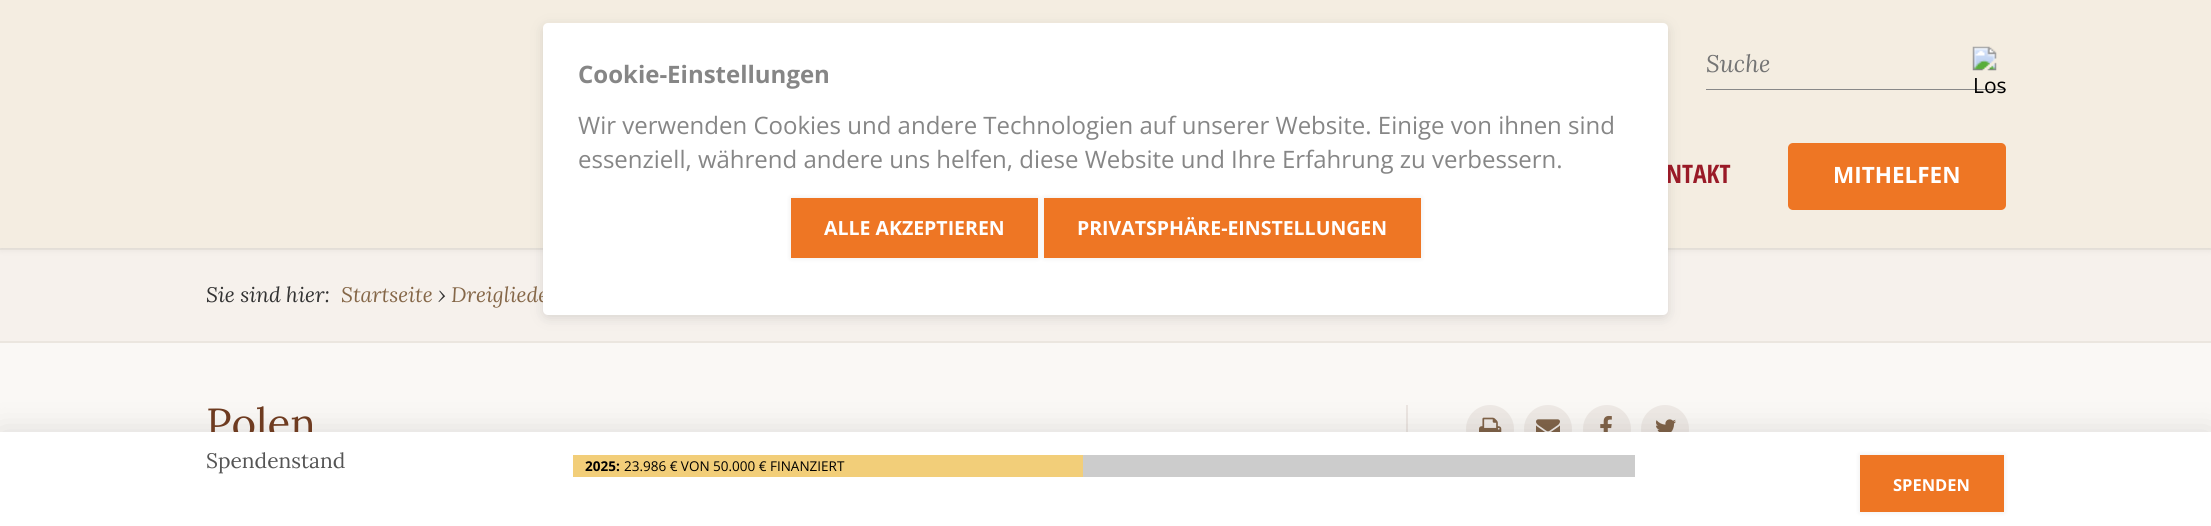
#include <cairo/cairo.h>
#include <math.h>
#include <stddef.h>


static void rounded_rect(cairo_t *cr, double x, double y, double w, double h, double r) {
  cairo_new_sub_path(cr);
  cairo_arc(cr, x + w - r, y + h - r, r, 0, M_PI / 2);
  cairo_arc(cr, x + r, y + h - r, r, M_PI / 2, M_PI);
  cairo_arc(cr, x + r, y + r, r, M_PI, 1.5 * M_PI);
  cairo_arc(cr, x + w - r, y + r, r, 1.5 * M_PI, 2 * M_PI);
  cairo_close_path(cr);
}

static void draw_shadow(cairo_t *cr, double x, double y, double w, double h, double r, double blur, double alpha) {
  cairo_push_group_with_content(cr, CAIRO_CONTENT_ALPHA);
  cairo_set_operator(cr, CAIRO_OPERATOR_SOURCE);
  for (int i = 15; i >= -15 && fmin(w, h) + blur * i / 3 > 0; i -= 2) {
    double e = blur * i / 6;
    cairo_set_source_rgba(cr, 0, 0, 0, alpha * erfc((i - 1) / 8.5) / 2);
    rounded_rect(cr, x - e, y - e, w + 2 * e, h + 2 * e, fmax(0, fmin(r + e + blur * .6, fmin(w, h) / 2 + e)));
    cairo_fill(cr);
  }
  cairo_pattern_t *soft = cairo_pop_group(cr);
  cairo_mask(cr, soft);
  cairo_pattern_destroy(soft);
}

static void draw_image(cairo_t *cr, const char *path, double x, double y, double w, double h) {
  cairo_surface_t *image = cairo_image_surface_create_from_png(path);
  cairo_save(cr);
  cairo_set_source_surface(cr, image, x, y);
  cairo_rectangle(cr, x, y, w, h);
  cairo_fill(cr);
  cairo_restore(cr);
  cairo_surface_destroy(image);
}

static void draw(cairo_t *cr) {
  cairo_set_source_rgb(cr, 250 / 255.0, 248 / 255.0, 245 / 255.0);
  cairo_paint(cr);
  cairo_set_source_rgb(cr, 246 / 255.0, 241 / 255.0, 236 / 255.0);
  cairo_rectangle(cr, 0, 250, 2211, 91);
  cairo_fill(cr);
  cairo_set_source_rgb(cr, 235 / 255.0, 230 / 255.0, 223 / 255.0);
  cairo_rectangle(cr, 0, 248, 2211, 2);
  cairo_fill(cr);
  cairo_set_source_rgb(cr, 0, 0, 0);
  draw_shadow(cr, 0, 0, 2211, 248, 0, 5, 0.08);
  cairo_set_source_rgb(cr, 244 / 255.0, 237 / 255.0, 225 / 255.0);
  cairo_rectangle(cr, 0, 0, 2211, 248);
  cairo_fill(cr);
  cairo_set_source_rgb(cr, 136 / 255.0, 136 / 255.0, 136 / 255.0);
  cairo_rectangle(cr, 1706, 89, 300, 1);
  cairo_fill(cr);
  draw_image(cr, "images/1.png", 1972, 46, 25, 25);
  cairo_set_source_rgb(cr, 238 / 255.0, 118 / 255.0, 36 / 255.0);
  rounded_rect(cr, 1788, 143, 218, 67, 5);
  cairo_fill(cr);
  cairo_set_source_rgb(cr, 235 / 255.0, 230 / 255.0, 223 / 255.0);
  cairo_rectangle(cr, 0, 341, 2211, 2);
  cairo_fill(cr);
  cairo_set_source_rgb(cr, 238 / 255.0, 233 / 255.0, 229 / 255.0);
  cairo_arc(cr, 1490, 429, 24, 0, 2 * M_PI);
  cairo_fill(cr);
  draw_image(cr, "images/2.png", 1479, 417, 23, 15);
  cairo_arc(cr, 1548, 429, 24, 0, 2 * M_PI);
  cairo_fill(cr);
  draw_image(cr, "images/3.png", 1536, 419, 24, 13);
  cairo_arc(cr, 1607, 429, 24, 0, 2 * M_PI);
  cairo_fill(cr);
  draw_image(cr, "images/4.png", 1600, 415, 12, 17);
  cairo_arc(cr, 1665, 429, 24, 0, 2 * M_PI);
  cairo_fill(cr);
  draw_image(cr, "images/5.png", 1656, 419, 20, 13);
  cairo_set_source_rgb(cr, 235 / 255.0, 229 / 255.0, 225 / 255.0);
  cairo_rectangle(cr, 1406, 405, 2, 27);
  cairo_fill(cr);
  cairo_set_source_rgb(cr, 0, 0, 0);
  draw_shadow(cr, 0, 432, 2211, 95, 0, 16.5, 0.12);
  cairo_set_source_rgb(cr, 99 / 255.0, 99 / 255.0, 99 / 255.0);
  draw_shadow(cr, 543, 26, 1125, 292, 5, 6, 0.2);
  cairo_select_font_face(cr, "Lora", CAIRO_FONT_SLANT_ITALIC, CAIRO_FONT_WEIGHT_NORMAL);
  cairo_set_font_size(cr, 24);
  cairo_set_source_rgb(cr, 117 / 255.0, 117 / 255.0, 117 / 255.0);
  cairo_move_to(cr, 1706, 72);
  cairo_show_text(cr, "Suche");
  cairo_select_font_face(cr, "Open Sans", CAIRO_FONT_SLANT_NORMAL, CAIRO_FONT_WEIGHT_NORMAL);
  cairo_set_font_size(cr, 21);
  cairo_set_source_rgb(cr, 0, 0, 0);
  cairo_move_to(cr, 1973, 93);
  cairo_show_text(cr, "Los");
  cairo_select_font_face(cr, "Open Sans Condensed", CAIRO_FONT_SLANT_NORMAL, CAIRO_FONT_WEIGHT_BOLD);
  cairo_set_font_size(cr, 25.5);
  cairo_set_source_rgb(cr, 153 / 255.0, 26 / 255.0, 39 / 255.0);
  cairo_move_to(cr, 1666, 183);
  cairo_show_text(cr, "NTAKT");
  cairo_select_font_face(cr, "Open Sans", CAIRO_FONT_SLANT_NORMAL, CAIRO_FONT_WEIGHT_BOLD);
  cairo_set_font_size(cr, 22.5);
  cairo_set_source_rgb(cr, 1, 1, 1);
  cairo_move_to(cr, 1833, 183);
  cairo_show_text(cr, "MITHELFEN");
  cairo_select_font_face(cr, "Lora", CAIRO_FONT_SLANT_ITALIC, CAIRO_FONT_WEIGHT_NORMAL);
  cairo_set_font_size(cr, 21);
  cairo_set_source_rgb(cr, 51 / 255.0, 51 / 255.0, 51 / 255.0);
  cairo_move_to(cr, 206, 302);
  cairo_show_text(cr, "Sie sind hier:");
  cairo_set_source_rgb(cr, 133 / 255.0, 103 / 255.0, 72 / 255.0);
  cairo_move_to(cr, 341, 302);
  cairo_show_text(cr, "Startseite");
  cairo_set_source_rgb(cr, 51 / 255.0, 51 / 255.0, 51 / 255.0);
  cairo_move_to(cr, 438, 302);
  cairo_show_text(cr, "›");
  cairo_set_source_rgb(cr, 133 / 255.0, 103 / 255.0, 72 / 255.0);
  cairo_move_to(cr, 451, 302);
  cairo_show_text(cr, "Dreigliede");
  cairo_select_font_face(cr, "Lora", CAIRO_FONT_SLANT_NORMAL, CAIRO_FONT_WEIGHT_NORMAL);
  cairo_set_font_size(cr, 42);
  cairo_set_source_rgb(cr, 110 / 255.0, 59 / 255.0, 32 / 255.0);
  cairo_move_to(cr, 206, 438);
  cairo_show_text(cr, "Polen");
  cairo_set_source_rgb(cr, 1, 1, 1);
  cairo_rectangle(cr, 0, 432, 2211, 94);
  cairo_fill(cr);
  cairo_set_font_size(cr, 21);
  cairo_set_source_rgb(cr, 85 / 255.0, 85 / 255.0, 85 / 255.0);
  cairo_move_to(cr, 206, 468);
  cairo_show_text(cr, "Spendenstand");
  cairo_set_source_rgb(cr, 204 / 255.0, 204 / 255.0, 204 / 255.0);
  cairo_rectangle(cr, 1083, 455, 552, 22);
  cairo_fill(cr);
  cairo_set_source_rgb(cr, 242 / 255.0, 206 / 255.0, 121 / 255.0);
  cairo_rectangle(cr, 573, 455, 510, 22);
  cairo_fill(cr);
  cairo_select_font_face(cr, "Open Sans", CAIRO_FONT_SLANT_NORMAL, CAIRO_FONT_WEIGHT_BOLD);
  cairo_set_font_size(cr, 13.5);
  cairo_set_source_rgb(cr, 0, 0, 0);
  cairo_move_to(cr, 585, 471);
  cairo_show_text(cr, "2025:");
  cairo_select_font_face(cr, "Open Sans", CAIRO_FONT_SLANT_NORMAL, CAIRO_FONT_WEIGHT_NORMAL);
  cairo_move_to(cr, 624, 471);
  cairo_show_text(cr, "23.986 € VON 50.000 € FINANZIERT");
  cairo_set_source_rgb(cr, 0, 0, 0);
  draw_shadow(cr, 1860, 455, 144, 57, 0, 3, 0.08);
  cairo_set_source_rgb(cr, 238 / 255.0, 118 / 255.0, 36 / 255.0);
  cairo_rectangle(cr, 1860, 455, 144, 57);
  cairo_fill(cr);
  cairo_select_font_face(cr, "Open Sans", CAIRO_FONT_SLANT_NORMAL, CAIRO_FONT_WEIGHT_BOLD);
  cairo_set_font_size(cr, 16.5);
  cairo_set_source_rgb(cr, 1, 1, 1);
  cairo_move_to(cr, 1893, 491);
  cairo_show_text(cr, "SPENDEN");
  rounded_rect(cr, 543, 23, 1125, 292, 5);
  cairo_fill(cr);
  cairo_set_font_size(cr, 24);
  cairo_set_source_rgb(cr, 134 / 255.0, 134 / 255.0, 134 / 255.0);
  cairo_move_to(cr, 578, 83);
  cairo_show_text(cr, "Cookie-Einstellungen");
  cairo_select_font_face(cr, "Open Sans", CAIRO_FONT_SLANT_NORMAL, CAIRO_FONT_WEIGHT_NORMAL);
  cairo_move_to(cr, 578, 134);
  cairo_show_text(cr, "Wir verwenden Cookies und andere Technologien auf unserer Website. Einige von ihnen sind");
  cairo_move_to(cr, 578, 168);
  cairo_show_text(cr, "essenziell, während andere uns helfen, diese Website und Ihre Erfahrung zu verbessern.");
  cairo_set_source_rgb(cr, 0, 0, 0);
  draw_shadow(cr, 791, 198, 247, 60, 0, 3, 0.08);
  cairo_set_source_rgb(cr, 238 / 255.0, 118 / 255.0, 36 / 255.0);
  cairo_rectangle(cr, 791, 198, 247, 60);
  cairo_fill(cr);
  cairo_select_font_face(cr, "Open Sans", CAIRO_FONT_SLANT_NORMAL, CAIRO_FONT_WEIGHT_BOLD);
  cairo_set_font_size(cr, 19.5);
  cairo_set_source_rgb(cr, 1, 1, 1);
  cairo_move_to(cr, 824, 235);
  cairo_show_text(cr, "ALLE AKZEPTIEREN");
  cairo_set_source_rgb(cr, 0, 0, 0);
  draw_shadow(cr, 1044, 198, 377, 60, 0, 3, 0.08);
  cairo_set_source_rgb(cr, 238 / 255.0, 118 / 255.0, 36 / 255.0);
  cairo_rectangle(cr, 1044, 198, 377, 60);
  cairo_fill(cr);
  cairo_set_source_rgb(cr, 1, 1, 1);
  cairo_move_to(cr, 1077, 235);
  cairo_show_text(cr, "PRIVATSPHÄRE-EINSTELLUNGEN");
}

int main(void) {
  cairo_surface_t *surface = cairo_image_surface_create(CAIRO_FORMAT_RGB24, 2211, 526);
  cairo_t *cr = cairo_create(surface);
  cairo_font_options_t *options = cairo_font_options_create();
  cairo_font_options_set_hint_metrics(options, CAIRO_HINT_METRICS_OFF);
  cairo_font_options_set_hint_style(options, CAIRO_HINT_STYLE_NONE);
  cairo_set_font_options(cr, options);
  cairo_set_miter_limit(cr, 4);
  draw(cr);
  cairo_surface_write_to_png(surface, "out.png");
  cairo_font_options_destroy(options);
  cairo_destroy(cr);
  cairo_surface_destroy(surface);
  return 0;
}
